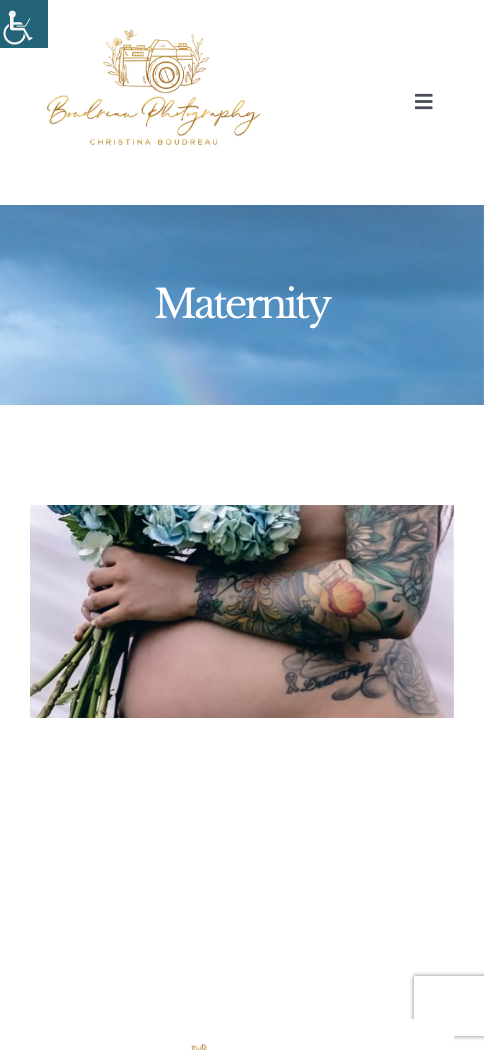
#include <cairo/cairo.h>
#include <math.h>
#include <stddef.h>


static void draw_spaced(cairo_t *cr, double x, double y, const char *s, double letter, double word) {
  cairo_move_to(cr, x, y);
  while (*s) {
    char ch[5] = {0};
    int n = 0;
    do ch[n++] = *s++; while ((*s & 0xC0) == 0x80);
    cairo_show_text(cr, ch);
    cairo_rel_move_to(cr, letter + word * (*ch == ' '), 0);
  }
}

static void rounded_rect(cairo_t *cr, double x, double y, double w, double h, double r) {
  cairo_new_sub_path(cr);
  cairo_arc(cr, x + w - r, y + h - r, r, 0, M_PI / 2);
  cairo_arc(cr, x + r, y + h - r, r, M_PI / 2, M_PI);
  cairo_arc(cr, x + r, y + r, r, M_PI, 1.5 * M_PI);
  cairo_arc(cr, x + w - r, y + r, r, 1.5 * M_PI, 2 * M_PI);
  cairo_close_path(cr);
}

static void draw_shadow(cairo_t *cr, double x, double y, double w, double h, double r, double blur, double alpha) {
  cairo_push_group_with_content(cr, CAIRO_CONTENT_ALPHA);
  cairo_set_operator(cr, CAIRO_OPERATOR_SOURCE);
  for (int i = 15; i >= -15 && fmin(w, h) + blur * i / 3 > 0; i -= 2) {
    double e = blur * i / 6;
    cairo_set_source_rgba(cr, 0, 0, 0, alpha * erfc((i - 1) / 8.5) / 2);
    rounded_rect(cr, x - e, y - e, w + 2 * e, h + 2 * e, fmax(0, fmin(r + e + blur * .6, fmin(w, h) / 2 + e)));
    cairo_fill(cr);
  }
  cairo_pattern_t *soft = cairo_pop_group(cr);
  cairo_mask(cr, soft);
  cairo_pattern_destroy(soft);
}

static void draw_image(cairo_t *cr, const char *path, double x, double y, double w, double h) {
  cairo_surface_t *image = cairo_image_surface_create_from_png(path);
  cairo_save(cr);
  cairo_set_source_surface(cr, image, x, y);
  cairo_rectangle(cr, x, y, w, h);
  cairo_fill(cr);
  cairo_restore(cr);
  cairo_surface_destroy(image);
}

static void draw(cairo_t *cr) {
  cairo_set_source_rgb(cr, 1, 1, 1);
  cairo_paint(cr);
  draw_image(cr, "images/2.png", 46, 29, 215, 117);
  draw_image(cr, "images/1.png", 0, 0, 48, 48);
  draw_image(cr, "images/3.png", 415, 93, 18, 17);
  draw_image(cr, "images/4.png", 0, 205, 484, 200);
  draw_image(cr, "images/5.png", 30, 505, 424, 213);
  cairo_save(cr);
  cairo_set_fill_rule(cr, CAIRO_FILL_RULE_EVEN_ODD);
  cairo_new_path(cr);
  cairo_move_to(cr, 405, 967);
  cairo_line_to(cr, 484, 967);
  cairo_line_to(cr, 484, 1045);
  cairo_line_to(cr, 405, 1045);
  cairo_close_path(cr);
  cairo_move_to(cr, 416, 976);
  cairo_line_to(cr, 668, 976);
  cairo_curve_to(cr, 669, 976, 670, 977, 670, 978);
  cairo_line_to(cr, 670, 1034);
  cairo_curve_to(cr, 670, 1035, 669, 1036, 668, 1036);
  cairo_line_to(cr, 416, 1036);
  cairo_curve_to(cr, 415, 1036, 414, 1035, 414, 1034);
  cairo_line_to(cr, 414, 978);
  cairo_curve_to(cr, 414, 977, 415, 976, 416, 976);
  cairo_close_path(cr);
  cairo_clip(cr);
  cairo_set_source_rgb(cr, 128 / 255.0, 128 / 255.0, 128 / 255.0);
  draw_shadow(cr, 414, 976, 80, 60, 2, 2.5, 1);
  cairo_restore(cr);
  draw_image(cr, "images/6.png", 191, 1019, 263, 31);
  cairo_select_font_face(cr, "Libre Baskerville", CAIRO_FONT_SLANT_NORMAL, CAIRO_FONT_WEIGHT_NORMAL);
  cairo_set_font_size(cr, 39.5);
  cairo_set_source_rgb(cr, 1, 1, 1);
  draw_spaced(cr, 154, 318, "Maternity", -3, 0);
}

int main(void) {
  cairo_surface_t *surface = cairo_image_surface_create(CAIRO_FORMAT_RGB24, 484, 1050);
  cairo_t *cr = cairo_create(surface);
  cairo_font_options_t *options = cairo_font_options_create();
  cairo_font_options_set_hint_metrics(options, CAIRO_HINT_METRICS_OFF);
  cairo_font_options_set_hint_style(options, CAIRO_HINT_STYLE_NONE);
  cairo_set_font_options(cr, options);
  cairo_set_miter_limit(cr, 4);
  draw(cr);
  cairo_surface_write_to_png(surface, "out.png");
  cairo_font_options_destroy(options);
  cairo_destroy(cr);
  cairo_surface_destroy(surface);
  return 0;
}
